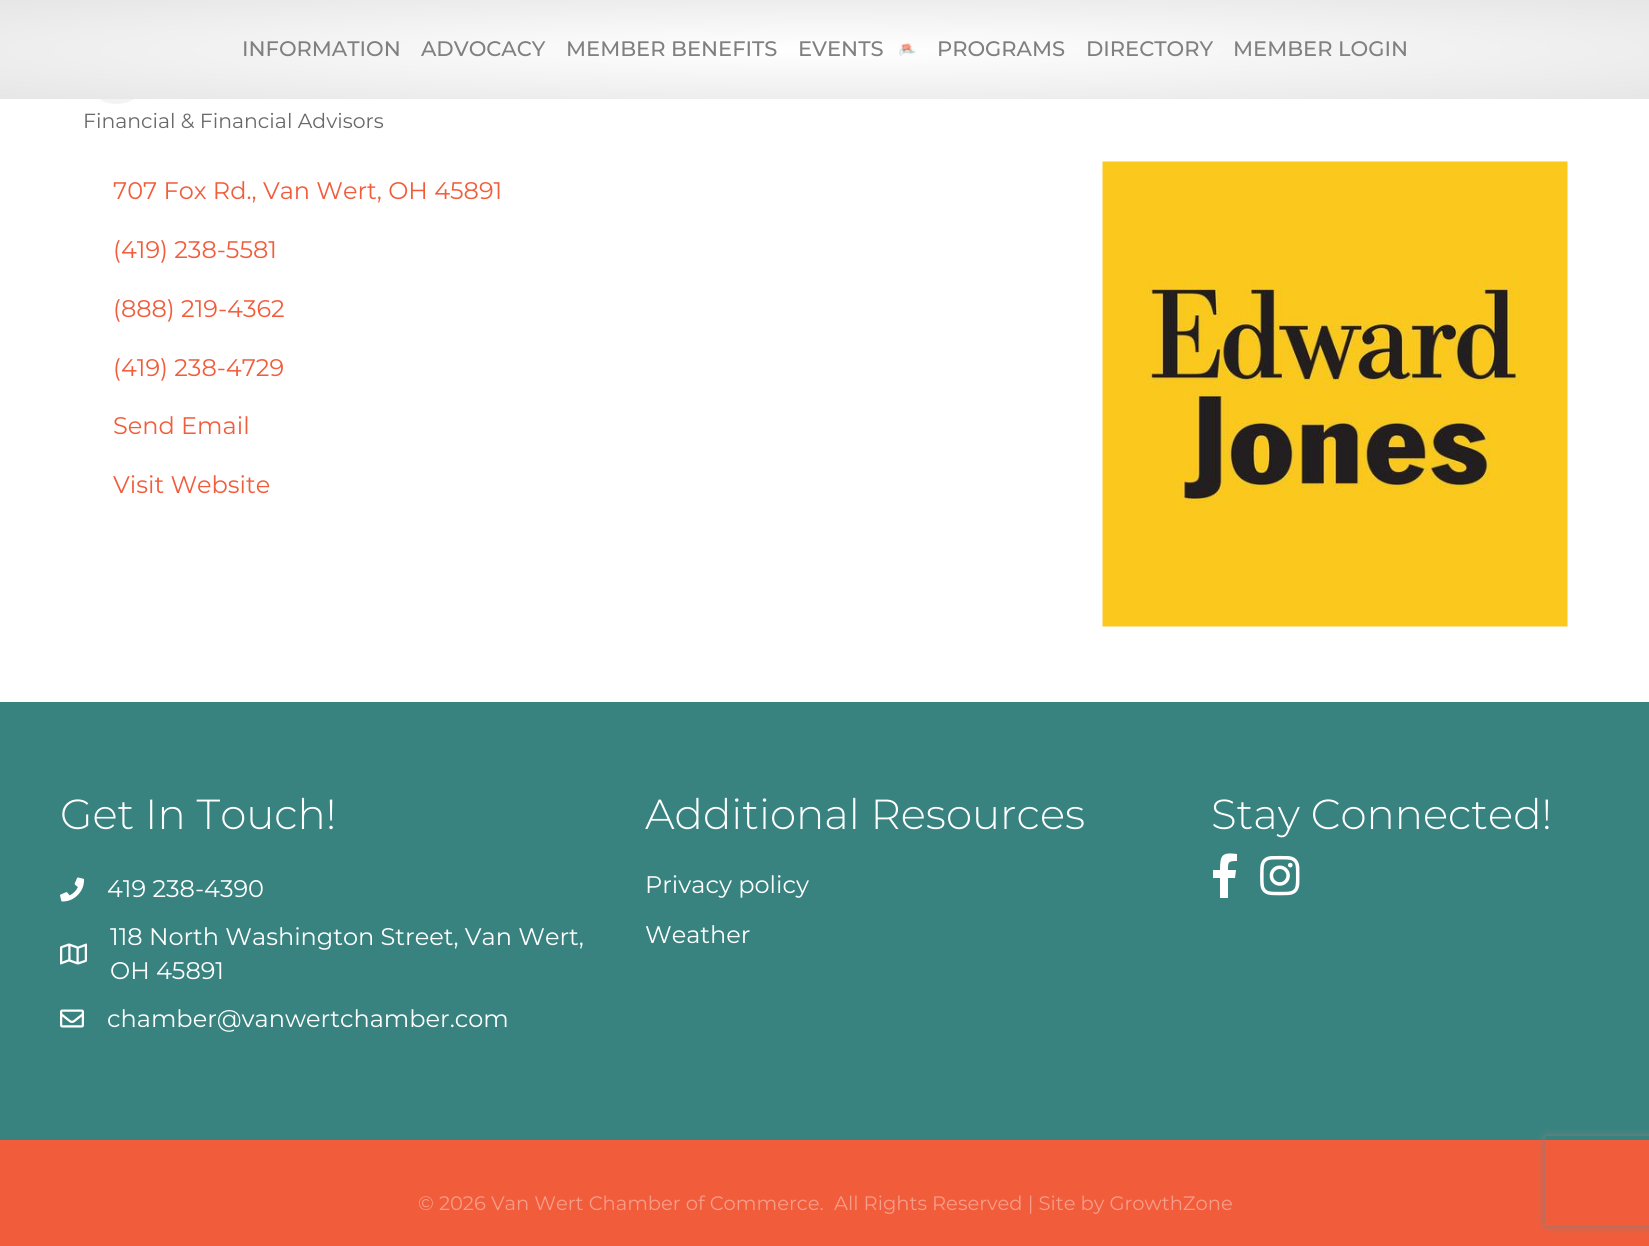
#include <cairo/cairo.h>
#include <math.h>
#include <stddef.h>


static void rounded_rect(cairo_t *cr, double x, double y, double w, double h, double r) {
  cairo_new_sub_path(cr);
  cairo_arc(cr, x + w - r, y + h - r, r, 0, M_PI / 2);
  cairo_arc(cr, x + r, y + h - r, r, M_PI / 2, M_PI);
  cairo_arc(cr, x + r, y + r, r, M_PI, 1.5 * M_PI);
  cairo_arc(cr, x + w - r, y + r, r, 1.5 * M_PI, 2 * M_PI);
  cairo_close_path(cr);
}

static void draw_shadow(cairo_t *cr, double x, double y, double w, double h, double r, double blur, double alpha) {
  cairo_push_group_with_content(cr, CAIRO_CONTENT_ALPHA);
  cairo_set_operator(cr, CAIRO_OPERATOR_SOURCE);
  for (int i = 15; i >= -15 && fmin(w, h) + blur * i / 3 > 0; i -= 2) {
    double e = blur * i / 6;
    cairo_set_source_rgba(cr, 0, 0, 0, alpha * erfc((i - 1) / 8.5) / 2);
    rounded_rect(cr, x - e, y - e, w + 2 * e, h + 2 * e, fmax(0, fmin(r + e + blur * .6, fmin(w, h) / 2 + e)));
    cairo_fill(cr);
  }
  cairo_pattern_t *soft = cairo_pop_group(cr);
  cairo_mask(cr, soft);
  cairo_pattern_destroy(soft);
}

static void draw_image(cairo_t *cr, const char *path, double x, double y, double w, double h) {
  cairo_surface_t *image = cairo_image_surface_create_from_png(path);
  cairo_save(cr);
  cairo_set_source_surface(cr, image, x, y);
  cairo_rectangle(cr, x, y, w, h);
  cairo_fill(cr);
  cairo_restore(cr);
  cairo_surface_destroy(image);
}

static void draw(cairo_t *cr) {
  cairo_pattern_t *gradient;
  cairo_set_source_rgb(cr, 1, 1, 1);
  cairo_paint(cr);
  cairo_set_source_rgb(cr, 243 / 255.0, 243 / 255.0, 243 / 255.0);
  rounded_rect(cr, 83, 36, 67, 68, 33.5);
  cairo_fill(cr);
  gradient = cairo_pattern_create_radial(0, 0, 0, 0, 0, 1);
  cairo_pattern_set_matrix(gradient, &(cairo_matrix_t){1.0 / 1167, 0, 0, 1.0 / 70, -1.0 * 825 / 1167, -1.0 * 50 / 70});
  cairo_pattern_add_color_stop_rgba(gradient, 0, 1, 1, 1, 1);
  cairo_pattern_add_color_stop_rgba(gradient, 1, 230 / 255.0, 230 / 255.0, 230 / 255.0, 1);
  cairo_set_source(cr, gradient);
  cairo_pattern_destroy(gradient);
  cairo_rectangle(cr, 0, 0, 1649, 99);
  cairo_fill(cr);
  draw_image(cr, "images/1.png", 899, 43, 17, 13);
  draw_image(cr, "images/2.png", 1102, 161, 466, 466);
  cairo_set_source_rgb(cr, 56 / 255.0, 131 / 255.0, 127 / 255.0);
  cairo_rectangle(cr, 0, 702, 1649, 438);
  cairo_fill(cr);
  draw_image(cr, "images/3.png", 60, 877, 24, 25);
  draw_image(cr, "images/4.png", 60, 943, 27, 22);
  draw_image(cr, "images/5.png", 60, 1009, 24, 19);
  cairo_set_source_rgb(cr, 1, 1, 1);
  cairo_new_path(cr);
  cairo_move_to(cr, 1235, 878);
  cairo_line_to(cr, 1228, 878);
  cairo_line_to(cr, 1228, 898);
  cairo_line_to(cr, 1220, 898);
  cairo_line_to(cr, 1220, 878);
  cairo_line_to(cr, 1213, 878);
  cairo_line_to(cr, 1213, 870);
  cairo_line_to(cr, 1220, 870);
  cairo_curve_to(cr, 1220, 855, 1222, 852, 1237, 854);
  cairo_line_to(cr, 1237, 861);
  cairo_curve_to(cr, 1228, 861, 1228, 862, 1228, 870);
  cairo_line_to(cr, 1236, 870);
  cairo_close_path(cr);
  cairo_fill(cr);
  draw_image(cr, "images/6.png", 1260, 855, 40, 41);
  cairo_set_source_rgb(cr, 241 / 255.0, 92 / 255.0, 59 / 255.0);
  cairo_rectangle(cr, 0, 1140, 1649, 106);
  cairo_fill(cr);
  cairo_save(cr);
  cairo_set_fill_rule(cr, CAIRO_FILL_RULE_EVEN_ODD);
  cairo_new_path(cr);
  cairo_move_to(cr, 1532, 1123);
  cairo_line_to(cr, 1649, 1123);
  cairo_line_to(cr, 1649, 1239);
  cairo_line_to(cr, 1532, 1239);
  cairo_close_path(cr);
  cairo_move_to(cr, 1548, 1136);
  cairo_line_to(cr, 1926, 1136);
  cairo_curve_to(cr, 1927.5, 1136, 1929, 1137.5, 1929, 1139);
  cairo_line_to(cr, 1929, 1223);
  cairo_curve_to(cr, 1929, 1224.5, 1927.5, 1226, 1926, 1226);
  cairo_line_to(cr, 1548, 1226);
  cairo_curve_to(cr, 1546.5, 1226, 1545, 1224.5, 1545, 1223);
  cairo_line_to(cr, 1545, 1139);
  cairo_curve_to(cr, 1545, 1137.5, 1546.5, 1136, 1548, 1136);
  cairo_close_path(cr);
  cairo_clip(cr);
  cairo_set_source_rgb(cr, 128 / 255.0, 128 / 255.0, 128 / 255.0);
  draw_shadow(cr, 1545, 1136, 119, 90, 3, 4, 1);
  cairo_restore(cr);
  cairo_select_font_face(cr, "Montserrat Medium", CAIRO_FONT_SLANT_NORMAL, CAIRO_FONT_WEIGHT_NORMAL);
  cairo_set_font_size(cr, 21);
  cairo_set_source_rgb(cr, 128 / 255.0, 128 / 255.0, 128 / 255.0);
  cairo_move_to(cr, 242, 56);
  cairo_show_text(cr, "INFORMATION");
  cairo_move_to(cr, 421, 56);
  cairo_show_text(cr, "ADVOCACY");
  cairo_move_to(cr, 566, 56);
  cairo_show_text(cr, "MEMBER BENEFITS");
  cairo_move_to(cr, 798, 56);
  cairo_show_text(cr, "EVENTS");
  cairo_move_to(cr, 937, 56);
  cairo_show_text(cr, "PROGRAMS");
  cairo_move_to(cr, 1086, 56);
  cairo_show_text(cr, "DIRECTORY");
  cairo_move_to(cr, 1233, 56);
  cairo_show_text(cr, "MEMBER LOGIN");
  cairo_select_font_face(cr, "Montserrat", CAIRO_FONT_SLANT_NORMAL, CAIRO_FONT_WEIGHT_NORMAL);
  cairo_set_font_size(cr, 20.4);
  cairo_set_source_rgb(cr, 105 / 255.0, 105 / 255.0, 105 / 255.0);
  cairo_move_to(cr, 83, 128);
  cairo_show_text(cr, "Financial & Financial Advisors");
  cairo_set_font_size(cr, 24);
  cairo_set_source_rgb(cr, 241 / 255.0, 92 / 255.0, 59 / 255.0);
  cairo_move_to(cr, 113, 199);
  cairo_show_text(cr, "707 Fox Rd., Van Wert, OH 45891");
  cairo_move_to(cr, 113, 258);
  cairo_show_text(cr, "(419) 238-5581");
  cairo_move_to(cr, 113, 317);
  cairo_show_text(cr, "(888) 219-4362");
  cairo_move_to(cr, 113, 376);
  cairo_show_text(cr, "(419) 238-4729");
  cairo_move_to(cr, 113, 434);
  cairo_show_text(cr, "Send Email");
  cairo_move_to(cr, 113, 493);
  cairo_show_text(cr, "Visit Website");
  cairo_select_font_face(cr, "Montserrat Light", CAIRO_FONT_SLANT_NORMAL, CAIRO_FONT_WEIGHT_NORMAL);
  cairo_set_font_size(cr, 42);
  cairo_set_source_rgb(cr, 1, 1, 1);
  cairo_move_to(cr, 60, 829);
  cairo_show_text(cr, "Get In Touch!");
  cairo_select_font_face(cr, "Montserrat", CAIRO_FONT_SLANT_NORMAL, CAIRO_FONT_WEIGHT_NORMAL);
  cairo_set_font_size(cr, 24);
  cairo_move_to(cr, 107, 897);
  cairo_show_text(cr, "419 238-4390");
  cairo_move_to(cr, 110, 945);
  cairo_show_text(cr, "118 North Washington Street, Van Wert,");
  cairo_move_to(cr, 110, 979);
  cairo_show_text(cr, "OH 45891");
  cairo_move_to(cr, 107, 1027);
  cairo_show_text(cr, "chamber@vanwertchamber.com");
  cairo_select_font_face(cr, "Montserrat Light", CAIRO_FONT_SLANT_NORMAL, CAIRO_FONT_WEIGHT_NORMAL);
  cairo_set_font_size(cr, 42);
  cairo_move_to(cr, 645, 829);
  cairo_show_text(cr, "Additional Resources");
  cairo_select_font_face(cr, "Montserrat", CAIRO_FONT_SLANT_NORMAL, CAIRO_FONT_WEIGHT_NORMAL);
  cairo_set_font_size(cr, 24);
  cairo_move_to(cr, 645, 893);
  cairo_show_text(cr, "Privacy policy");
  cairo_move_to(cr, 645, 943);
  cairo_show_text(cr, "Weather");
  cairo_select_font_face(cr, "Montserrat Light", CAIRO_FONT_SLANT_NORMAL, CAIRO_FONT_WEIGHT_NORMAL);
  cairo_set_font_size(cr, 42);
  cairo_move_to(cr, 1211, 829);
  cairo_show_text(cr, "Stay Connected!");
  cairo_select_font_face(cr, "Montserrat", CAIRO_FONT_SLANT_NORMAL, CAIRO_FONT_WEIGHT_NORMAL);
  cairo_set_font_size(cr, 19.5);
  cairo_set_source_rgb(cr, 247 / 255.0, 157 / 255.0, 137 / 255.0);
  cairo_move_to(cr, 418, 1210);
  cairo_show_text(cr, "© 2026 Van Wert Chamber of Commerce.");
  cairo_move_to(cr, 834, 1210);
  cairo_show_text(cr, "All Rights Reserved | Site by GrowthZone");
}

int main(void) {
  cairo_surface_t *surface = cairo_image_surface_create(CAIRO_FORMAT_RGB24, 1649, 1246);
  cairo_t *cr = cairo_create(surface);
  cairo_font_options_t *options = cairo_font_options_create();
  cairo_font_options_set_hint_metrics(options, CAIRO_HINT_METRICS_OFF);
  cairo_font_options_set_hint_style(options, CAIRO_HINT_STYLE_NONE);
  cairo_set_font_options(cr, options);
  cairo_set_miter_limit(cr, 4);
  draw(cr);
  cairo_surface_write_to_png(surface, "out.png");
  cairo_font_options_destroy(options);
  cairo_destroy(cr);
  cairo_surface_destroy(surface);
  return 0;
}
